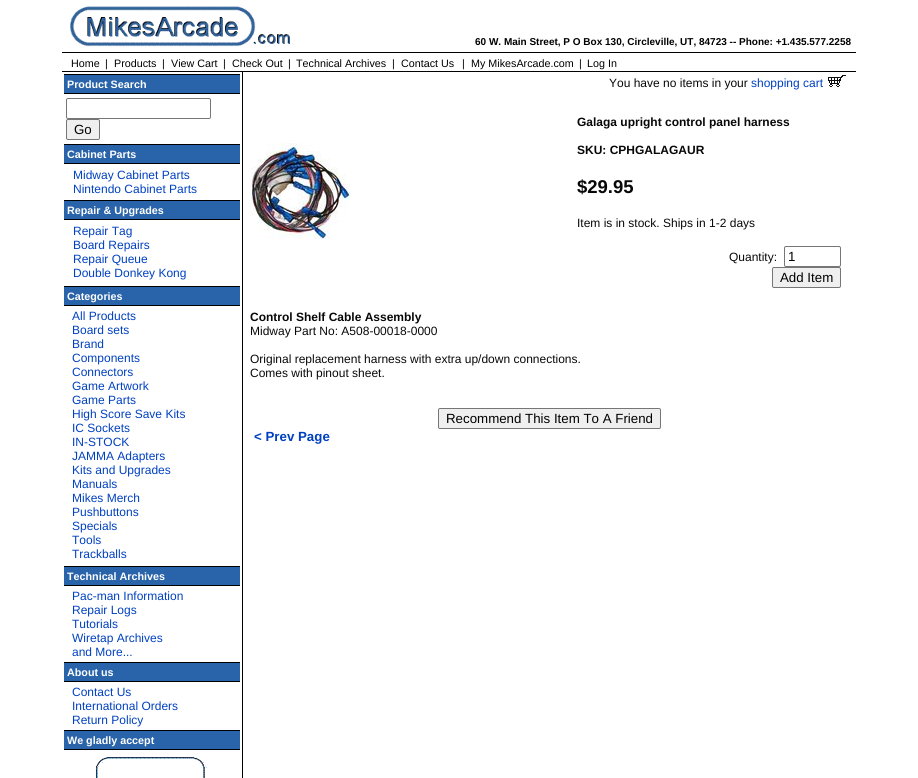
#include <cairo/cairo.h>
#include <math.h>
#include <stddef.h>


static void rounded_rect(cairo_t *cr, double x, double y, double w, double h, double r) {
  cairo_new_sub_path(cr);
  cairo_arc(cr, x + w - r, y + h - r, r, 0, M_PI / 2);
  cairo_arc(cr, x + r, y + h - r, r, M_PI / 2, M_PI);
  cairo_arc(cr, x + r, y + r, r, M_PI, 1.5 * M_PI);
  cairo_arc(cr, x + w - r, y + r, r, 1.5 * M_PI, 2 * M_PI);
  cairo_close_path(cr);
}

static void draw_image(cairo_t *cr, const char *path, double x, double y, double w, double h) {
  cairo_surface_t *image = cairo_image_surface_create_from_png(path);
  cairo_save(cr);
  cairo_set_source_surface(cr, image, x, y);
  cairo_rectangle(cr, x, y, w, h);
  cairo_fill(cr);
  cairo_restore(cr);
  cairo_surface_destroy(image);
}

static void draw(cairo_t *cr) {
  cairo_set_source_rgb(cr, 1, 1, 1);
  cairo_paint(cr);
  draw_image(cr, "images/1.png", 70, 6, 220, 41);
  cairo_set_source_rgb(cr, 0, 0, 0);
  cairo_rectangle(cr, 62, 52, 794, 1);
  cairo_fill(cr);
  cairo_rectangle(cr, 62, 71, 794, 1);
  cairo_fill(cr);
  cairo_set_source_rgb(cr, 41 / 255.0, 99 / 255.0, 169 / 255.0);
  cairo_rectangle(cr, 64, 75, 176, 18);
  cairo_fill(cr);
  cairo_set_source_rgb(cr, 0, 0, 0);
  cairo_rectangle(cr, 64, 74, 176, 1);
  cairo_fill(cr);
  cairo_rectangle(cr, 64, 93, 176, 1);
  cairo_fill(cr);
  rounded_rect(cr, 66.5, 98.5, 144, 20, 1.5);
  cairo_set_source_rgb(cr, 118 / 255.0, 118 / 255.0, 118 / 255.0);
  cairo_set_line_width(cr, 1);
  cairo_stroke(cr);
  cairo_set_source_rgb(cr, 239 / 255.0, 239 / 255.0, 239 / 255.0);
  rounded_rect(cr, 66.5, 119.5, 33, 20, 1.5);
  cairo_fill_preserve(cr);
  cairo_set_source_rgb(cr, 118 / 255.0, 118 / 255.0, 118 / 255.0);
  cairo_stroke(cr);
  cairo_set_source_rgb(cr, 41 / 255.0, 99 / 255.0, 169 / 255.0);
  cairo_rectangle(cr, 64, 145, 176, 18);
  cairo_fill(cr);
  cairo_set_source_rgb(cr, 0, 0, 0);
  cairo_rectangle(cr, 64, 144, 176, 1);
  cairo_fill(cr);
  cairo_rectangle(cr, 64, 163, 176, 1);
  cairo_fill(cr);
  cairo_set_source_rgb(cr, 41 / 255.0, 99 / 255.0, 169 / 255.0);
  cairo_rectangle(cr, 64, 201, 176, 18);
  cairo_fill(cr);
  cairo_set_source_rgb(cr, 0, 0, 0);
  cairo_rectangle(cr, 64, 200, 176, 1);
  cairo_fill(cr);
  cairo_rectangle(cr, 64, 219, 176, 1);
  cairo_fill(cr);
  cairo_set_source_rgb(cr, 41 / 255.0, 99 / 255.0, 169 / 255.0);
  cairo_rectangle(cr, 64, 287, 176, 18);
  cairo_fill(cr);
  cairo_set_source_rgb(cr, 0, 0, 0);
  cairo_rectangle(cr, 64, 286, 176, 1);
  cairo_fill(cr);
  cairo_rectangle(cr, 64, 305, 176, 1);
  cairo_fill(cr);
  cairo_set_source_rgb(cr, 41 / 255.0, 99 / 255.0, 169 / 255.0);
  cairo_rectangle(cr, 64, 567, 176, 18);
  cairo_fill(cr);
  cairo_set_source_rgb(cr, 0, 0, 0);
  cairo_rectangle(cr, 64, 566, 176, 1);
  cairo_fill(cr);
  cairo_rectangle(cr, 64, 585, 176, 1);
  cairo_fill(cr);
  cairo_set_source_rgb(cr, 41 / 255.0, 99 / 255.0, 169 / 255.0);
  cairo_rectangle(cr, 64, 663, 176, 18);
  cairo_fill(cr);
  cairo_set_source_rgb(cr, 0, 0, 0);
  cairo_rectangle(cr, 64, 662, 176, 1);
  cairo_fill(cr);
  cairo_rectangle(cr, 64, 681, 176, 1);
  cairo_fill(cr);
  cairo_set_source_rgb(cr, 41 / 255.0, 99 / 255.0, 169 / 255.0);
  cairo_rectangle(cr, 64, 731, 176, 18);
  cairo_fill(cr);
  cairo_set_source_rgb(cr, 0, 0, 0);
  cairo_rectangle(cr, 64, 730, 176, 1);
  cairo_fill(cr);
  cairo_rectangle(cr, 64, 749, 176, 1);
  cairo_fill(cr);
  draw_image(cr, "images/2.png", 96, 757, 111, 21);
  cairo_rectangle(cr, 242, 72, 1, 706);
  cairo_fill(cr);
  draw_image(cr, "images/3.png", 828, 75, 18, 12);
  draw_image(cr, "images/4.png", 250, 143, 100, 97);
  rounded_rect(cr, 784.5, 246.5, 56, 20, 1.5);
  cairo_set_source_rgb(cr, 118 / 255.0, 118 / 255.0, 118 / 255.0);
  cairo_stroke(cr);
  cairo_set_source_rgb(cr, 239 / 255.0, 239 / 255.0, 239 / 255.0);
  rounded_rect(cr, 772.5, 267.5, 68, 20, 1.5);
  cairo_fill_preserve(cr);
  cairo_set_source_rgb(cr, 118 / 255.0, 118 / 255.0, 118 / 255.0);
  cairo_stroke(cr);
  cairo_set_source_rgb(cr, 239 / 255.0, 239 / 255.0, 239 / 255.0);
  rounded_rect(cr, 438.5, 408.5, 222, 20, 1.5);
  cairo_fill_preserve(cr);
  cairo_set_source_rgb(cr, 118 / 255.0, 118 / 255.0, 118 / 255.0);
  cairo_stroke(cr);
  cairo_select_font_face(cr, "Liberation Sans", CAIRO_FONT_SLANT_NORMAL, CAIRO_FONT_WEIGHT_BOLD);
  cairo_set_font_size(cr, 10);
  cairo_set_source_rgb(cr, 0, 0, 0);
  cairo_move_to(cr, 475, 45);
  cairo_show_text(cr, "60 W. Main Street, P O Box 130, Circleville, UT, 84723 -- Phone: +1.435.577.2258");
  cairo_select_font_face(cr, "Liberation Sans", CAIRO_FONT_SLANT_NORMAL, CAIRO_FONT_WEIGHT_NORMAL);
  cairo_set_font_size(cr, 10.75);
  cairo_move_to(cr, 71, 67);
  cairo_show_text(cr, "Home");
  cairo_move_to(cr, 105, 67);
  cairo_show_text(cr, "|");
  cairo_move_to(cr, 114, 67);
  cairo_show_text(cr, "Products");
  cairo_move_to(cr, 162, 67);
  cairo_show_text(cr, "|");
  cairo_move_to(cr, 171, 67);
  cairo_show_text(cr, "View Cart");
  cairo_move_to(cr, 223, 67);
  cairo_show_text(cr, "|");
  cairo_move_to(cr, 232, 67);
  cairo_show_text(cr, "Check Out");
  cairo_move_to(cr, 288, 67);
  cairo_show_text(cr, "|");
  cairo_move_to(cr, 296, 67);
  cairo_show_text(cr, "Technical Archives");
  cairo_move_to(cr, 392, 67);
  cairo_show_text(cr, "|");
  cairo_move_to(cr, 401, 67);
  cairo_show_text(cr, "Contact Us");
  cairo_move_to(cr, 462, 67);
  cairo_show_text(cr, "|");
  cairo_move_to(cr, 471, 67);
  cairo_show_text(cr, "My MikesArcade.com");
  cairo_move_to(cr, 579, 67);
  cairo_show_text(cr, "|");
  cairo_move_to(cr, 587, 67);
  cairo_show_text(cr, "Log In");
  cairo_select_font_face(cr, "Liberation Sans", CAIRO_FONT_SLANT_NORMAL, CAIRO_FONT_WEIGHT_BOLD);
  cairo_set_source_rgb(cr, 1, 1, 1);
  cairo_move_to(cr, 67, 88);
  cairo_show_text(cr, "Product Search");
  cairo_select_font_face(cr, "Liberation Sans", CAIRO_FONT_SLANT_NORMAL, CAIRO_FONT_WEIGHT_NORMAL);
  cairo_set_font_size(cr, 13.3);
  cairo_set_source_rgb(cr, 0, 0, 0);
  cairo_move_to(cr, 74, 134);
  cairo_show_text(cr, "Go");
  cairo_select_font_face(cr, "Liberation Sans", CAIRO_FONT_SLANT_NORMAL, CAIRO_FONT_WEIGHT_BOLD);
  cairo_set_font_size(cr, 10.75);
  cairo_set_source_rgb(cr, 1, 1, 1);
  cairo_move_to(cr, 67, 158);
  cairo_show_text(cr, "Cabinet Parts");
  cairo_select_font_face(cr, "Liberation Sans", CAIRO_FONT_SLANT_NORMAL, CAIRO_FONT_WEIGHT_NORMAL);
  cairo_set_font_size(cr, 12);
  cairo_set_source_rgb(cr, 0, 64 / 255.0, 192 / 255.0);
  cairo_move_to(cr, 73, 179);
  cairo_show_text(cr, "Midway Cabinet Parts");
  cairo_move_to(cr, 73, 193);
  cairo_show_text(cr, "Nintendo Cabinet Parts");
  cairo_select_font_face(cr, "Liberation Sans", CAIRO_FONT_SLANT_NORMAL, CAIRO_FONT_WEIGHT_BOLD);
  cairo_set_font_size(cr, 10.75);
  cairo_set_source_rgb(cr, 1, 1, 1);
  cairo_move_to(cr, 67, 214);
  cairo_show_text(cr, "Repair & Upgrades");
  cairo_select_font_face(cr, "Liberation Sans", CAIRO_FONT_SLANT_NORMAL, CAIRO_FONT_WEIGHT_NORMAL);
  cairo_set_font_size(cr, 12);
  cairo_set_source_rgb(cr, 0, 64 / 255.0, 192 / 255.0);
  cairo_move_to(cr, 73, 235);
  cairo_show_text(cr, "Repair Tag");
  cairo_move_to(cr, 73, 249);
  cairo_show_text(cr, "Board Repairs");
  cairo_move_to(cr, 73, 263);
  cairo_show_text(cr, "Repair Queue");
  cairo_move_to(cr, 73, 277);
  cairo_show_text(cr, "Double Donkey Kong");
  cairo_select_font_face(cr, "Liberation Sans", CAIRO_FONT_SLANT_NORMAL, CAIRO_FONT_WEIGHT_BOLD);
  cairo_set_font_size(cr, 10.75);
  cairo_set_source_rgb(cr, 1, 1, 1);
  cairo_move_to(cr, 67, 300);
  cairo_show_text(cr, "Categories");
  cairo_select_font_face(cr, "Liberation Sans", CAIRO_FONT_SLANT_NORMAL, CAIRO_FONT_WEIGHT_NORMAL);
  cairo_set_font_size(cr, 12);
  cairo_set_source_rgb(cr, 0, 64 / 255.0, 192 / 255.0);
  cairo_move_to(cr, 72, 320);
  cairo_show_text(cr, "All Products");
  cairo_move_to(cr, 72, 334);
  cairo_show_text(cr, "Board sets");
  cairo_move_to(cr, 72, 348);
  cairo_show_text(cr, "Brand");
  cairo_move_to(cr, 72, 362);
  cairo_show_text(cr, "Components");
  cairo_move_to(cr, 72, 376);
  cairo_show_text(cr, "Connectors");
  cairo_move_to(cr, 72, 390);
  cairo_show_text(cr, "Game Artwork");
  cairo_move_to(cr, 72, 404);
  cairo_show_text(cr, "Game Parts");
  cairo_move_to(cr, 72, 418);
  cairo_show_text(cr, "High Score Save Kits");
  cairo_move_to(cr, 72, 432);
  cairo_show_text(cr, "IC Sockets");
  cairo_move_to(cr, 72, 446);
  cairo_show_text(cr, "IN-STOCK");
  cairo_move_to(cr, 72, 460);
  cairo_show_text(cr, "JAMMA Adapters");
  cairo_move_to(cr, 72, 474);
  cairo_show_text(cr, "Kits and Upgrades");
  cairo_move_to(cr, 72, 488);
  cairo_show_text(cr, "Manuals");
  cairo_move_to(cr, 72, 502);
  cairo_show_text(cr, "Mikes Merch");
  cairo_move_to(cr, 72, 516);
  cairo_show_text(cr, "Pushbuttons");
  cairo_move_to(cr, 72, 530);
  cairo_show_text(cr, "Specials");
  cairo_move_to(cr, 72, 544);
  cairo_show_text(cr, "Tools");
  cairo_move_to(cr, 72, 558);
  cairo_show_text(cr, "Trackballs");
  cairo_select_font_face(cr, "Liberation Sans", CAIRO_FONT_SLANT_NORMAL, CAIRO_FONT_WEIGHT_BOLD);
  cairo_set_font_size(cr, 10.75);
  cairo_set_source_rgb(cr, 1, 1, 1);
  cairo_move_to(cr, 67, 580);
  cairo_show_text(cr, "Technical Archives");
  cairo_select_font_face(cr, "Liberation Sans", CAIRO_FONT_SLANT_NORMAL, CAIRO_FONT_WEIGHT_NORMAL);
  cairo_set_font_size(cr, 12);
  cairo_set_source_rgb(cr, 0, 64 / 255.0, 192 / 255.0);
  cairo_move_to(cr, 72, 600);
  cairo_show_text(cr, "Pac-man Information");
  cairo_move_to(cr, 72, 614);
  cairo_show_text(cr, "Repair Logs");
  cairo_move_to(cr, 72, 628);
  cairo_show_text(cr, "Tutorials");
  cairo_move_to(cr, 72, 642);
  cairo_show_text(cr, "Wiretap Archives");
  cairo_move_to(cr, 72, 656);
  cairo_show_text(cr, "and More...");
  cairo_select_font_face(cr, "Liberation Sans", CAIRO_FONT_SLANT_NORMAL, CAIRO_FONT_WEIGHT_BOLD);
  cairo_set_font_size(cr, 10.75);
  cairo_set_source_rgb(cr, 1, 1, 1);
  cairo_move_to(cr, 67, 676);
  cairo_show_text(cr, "About us");
  cairo_select_font_face(cr, "Liberation Sans", CAIRO_FONT_SLANT_NORMAL, CAIRO_FONT_WEIGHT_NORMAL);
  cairo_set_font_size(cr, 12);
  cairo_set_source_rgb(cr, 0, 64 / 255.0, 192 / 255.0);
  cairo_move_to(cr, 72, 696);
  cairo_show_text(cr, "Contact Us");
  cairo_move_to(cr, 72, 710);
  cairo_show_text(cr, "International Orders");
  cairo_move_to(cr, 72, 724);
  cairo_show_text(cr, "Return Policy");
  cairo_select_font_face(cr, "Liberation Sans", CAIRO_FONT_SLANT_NORMAL, CAIRO_FONT_WEIGHT_BOLD);
  cairo_set_font_size(cr, 10.75);
  cairo_set_source_rgb(cr, 1, 1, 1);
  cairo_move_to(cr, 67, 744);
  cairo_show_text(cr, "We gladly accept");
  cairo_select_font_face(cr, "Liberation Sans", CAIRO_FONT_SLANT_NORMAL, CAIRO_FONT_WEIGHT_NORMAL);
  cairo_set_font_size(cr, 12);
  cairo_set_source_rgb(cr, 8 / 255.0, 8 / 255.0, 8 / 255.0);
  cairo_move_to(cr, 609, 87);
  cairo_show_text(cr, "You have no items in your");
  cairo_set_source_rgb(cr, 0, 64 / 255.0, 192 / 255.0);
  cairo_move_to(cr, 751, 87);
  cairo_show_text(cr, "shopping cart");
  cairo_select_font_face(cr, "Liberation Sans", CAIRO_FONT_SLANT_NORMAL, CAIRO_FONT_WEIGHT_BOLD);
  cairo_set_source_rgb(cr, 8 / 255.0, 8 / 255.0, 8 / 255.0);
  cairo_move_to(cr, 577, 126);
  cairo_show_text(cr, "Galaga upright control panel harness");
  cairo_move_to(cr, 577, 154);
  cairo_show_text(cr, "SKU: CPHGALAGAUR");
  cairo_set_font_size(cr, 18.5);
  cairo_move_to(cr, 577, 193);
  cairo_show_text(cr, "$29.95");
  cairo_select_font_face(cr, "Liberation Sans", CAIRO_FONT_SLANT_NORMAL, CAIRO_FONT_WEIGHT_NORMAL);
  cairo_set_font_size(cr, 12);
  cairo_move_to(cr, 577, 227);
  cairo_show_text(cr, "Item is in stock. Ships in 1-2 days");
  cairo_move_to(cr, 729, 261);
  cairo_show_text(cr, "Quantity:");
  cairo_set_font_size(cr, 13.3);
  cairo_set_source_rgb(cr, 0, 0, 0);
  cairo_move_to(cr, 788, 261);
  cairo_show_text(cr, "1");
  cairo_move_to(cr, 780, 282);
  cairo_show_text(cr, "Add Item");
  cairo_select_font_face(cr, "Liberation Sans", CAIRO_FONT_SLANT_NORMAL, CAIRO_FONT_WEIGHT_BOLD);
  cairo_set_font_size(cr, 12);
  cairo_set_source_rgb(cr, 8 / 255.0, 8 / 255.0, 8 / 255.0);
  cairo_move_to(cr, 250, 321);
  cairo_show_text(cr, "Control Shelf Cable Assembly");
  cairo_select_font_face(cr, "Liberation Sans", CAIRO_FONT_SLANT_NORMAL, CAIRO_FONT_WEIGHT_NORMAL);
  cairo_move_to(cr, 250, 335);
  cairo_show_text(cr, "Midway Part No: A508-00018-0000");
  cairo_move_to(cr, 250, 363);
  cairo_show_text(cr, "Original replacement harness with extra up/down connections.");
  cairo_move_to(cr, 250, 377);
  cairo_show_text(cr, "Comes with pinout sheet.");
  cairo_set_font_size(cr, 13.3);
  cairo_set_source_rgb(cr, 0, 0, 0);
  cairo_move_to(cr, 446, 423);
  cairo_show_text(cr, "Recommend This Item To A Friend");
  cairo_select_font_face(cr, "Liberation Sans", CAIRO_FONT_SLANT_NORMAL, CAIRO_FONT_WEIGHT_BOLD);
  cairo_set_source_rgb(cr, 0, 64 / 255.0, 192 / 255.0);
  cairo_move_to(cr, 254, 441);
  cairo_show_text(cr, "< Prev Page");
}

int main(void) {
  cairo_surface_t *surface = cairo_image_surface_create(CAIRO_FORMAT_RGB24, 918, 778);
  cairo_t *cr = cairo_create(surface);
  cairo_font_options_t *options = cairo_font_options_create();
  cairo_font_options_set_hint_metrics(options, CAIRO_HINT_METRICS_OFF);
  cairo_font_options_set_hint_style(options, CAIRO_HINT_STYLE_NONE);
  cairo_set_font_options(cr, options);
  cairo_set_miter_limit(cr, 4);
  draw(cr);
  cairo_surface_write_to_png(surface, "out.png");
  cairo_font_options_destroy(options);
  cairo_destroy(cr);
  cairo_surface_destroy(surface);
  return 0;
}
